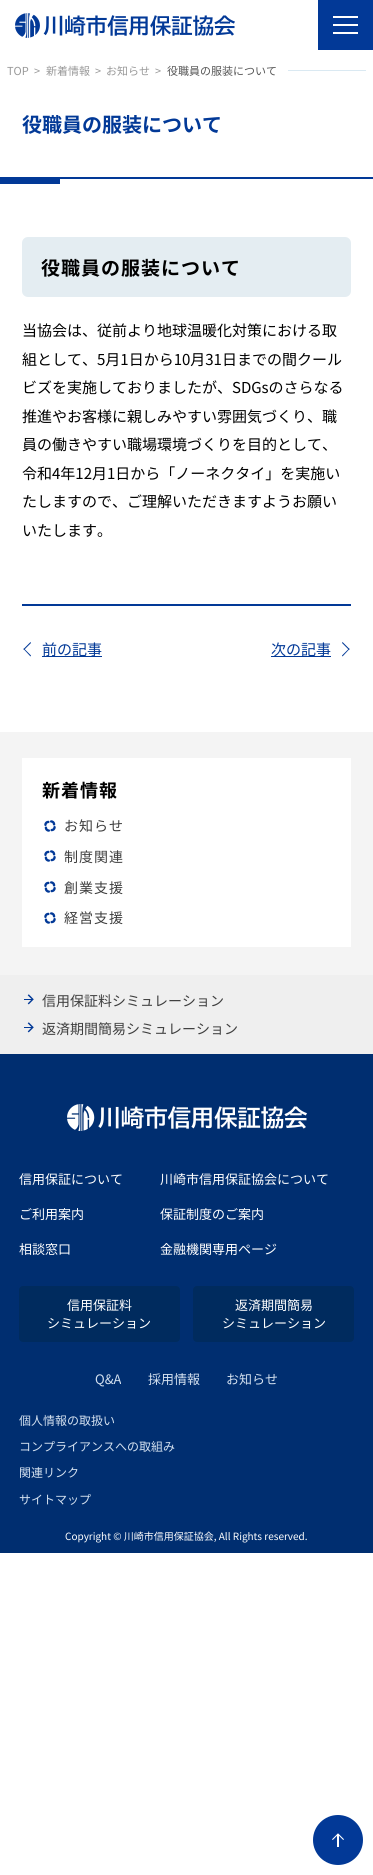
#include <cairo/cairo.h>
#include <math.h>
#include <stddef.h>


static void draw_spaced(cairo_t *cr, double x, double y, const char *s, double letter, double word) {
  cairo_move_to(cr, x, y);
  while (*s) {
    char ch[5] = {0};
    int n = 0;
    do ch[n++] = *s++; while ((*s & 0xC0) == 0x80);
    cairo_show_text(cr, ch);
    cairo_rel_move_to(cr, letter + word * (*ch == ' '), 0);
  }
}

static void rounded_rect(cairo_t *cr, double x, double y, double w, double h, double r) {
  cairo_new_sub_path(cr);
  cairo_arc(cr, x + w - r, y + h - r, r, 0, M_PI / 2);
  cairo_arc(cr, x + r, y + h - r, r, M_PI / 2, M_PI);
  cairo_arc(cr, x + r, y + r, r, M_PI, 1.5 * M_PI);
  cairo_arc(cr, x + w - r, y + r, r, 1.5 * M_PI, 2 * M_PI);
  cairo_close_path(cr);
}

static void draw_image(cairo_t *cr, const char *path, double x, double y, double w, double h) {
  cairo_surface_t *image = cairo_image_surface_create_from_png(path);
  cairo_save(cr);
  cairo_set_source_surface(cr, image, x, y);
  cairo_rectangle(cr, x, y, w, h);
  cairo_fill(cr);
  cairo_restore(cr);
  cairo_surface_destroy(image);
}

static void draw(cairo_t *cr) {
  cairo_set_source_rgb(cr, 1, 1, 1);
  cairo_paint(cr);
  draw_image(cr, "images/1.png", 15, 13, 220, 25);
  cairo_set_source_rgb(cr, 2 / 255.0, 57 / 255.0, 151 / 255.0);
  cairo_rectangle(cr, 318, 0, 55, 50);
  cairo_fill(cr);
  cairo_set_source_rgb(cr, 1, 1, 1);
  cairo_rectangle(cr, 333, 16, 25, 2);
  cairo_fill(cr);
  cairo_rectangle(cr, 333, 32, 25, 2);
  cairo_fill(cr);
  cairo_rectangle(cr, 333, 24, 25, 2);
  cairo_fill(cr);
  cairo_set_source_rgb(cr, 218 / 255.0, 233 / 255.0, 242 / 255.0);
  cairo_rectangle(cr, 288, 70, 78, 1);
  cairo_fill(cr);
  cairo_set_source_rgb(cr, 2 / 255.0, 57 / 255.0, 151 / 255.0);
  cairo_rectangle(cr, 0, 177, 373, 2);
  cairo_fill(cr);
  cairo_rectangle(cr, 0, 179, 60, 5);
  cairo_fill(cr);
  cairo_rectangle(cr, 22, 604, 329, 2);
  cairo_fill(cr);
  cairo_set_source_rgb(cr, 228 / 255.0, 237 / 255.0, 242 / 255.0);
  rounded_rect(cr, 22, 237, 329, 60, 6);
  cairo_fill(cr);
  cairo_set_source_rgb(cr, 2 / 255.0, 57 / 255.0, 151 / 255.0);
  cairo_new_path(cr);
  cairo_move_to(cr, 30.5, 656.5);
  cairo_line_to(cr, 23.5, 649);
  cairo_line_to(cr, 24, 648.5);
  cairo_line_to(cr, 31, 655.5);
  cairo_close_path(cr);
  cairo_fill(cr);
  cairo_new_path(cr);
  cairo_move_to(cr, 24, 650);
  cairo_line_to(cr, 23.5, 649);
  cairo_line_to(cr, 30.5, 642);
  cairo_line_to(cr, 31, 643);
  cairo_close_path(cr);
  cairo_fill(cr);
  cairo_rectangle(cr, 42, 656, 60, 1);
  cairo_fill(cr);
  cairo_rectangle(cr, 271, 656, 60, 1);
  cairo_fill(cr);
  cairo_new_path(cr);
  cairo_move_to(cr, 342.5, 642);
  cairo_line_to(cr, 349.5, 649);
  cairo_line_to(cr, 349, 650);
  cairo_line_to(cr, 342, 643);
  cairo_close_path(cr);
  cairo_fill(cr);
  cairo_new_path(cr);
  cairo_move_to(cr, 349, 648.5);
  cairo_line_to(cr, 349.5, 649);
  cairo_line_to(cr, 342.5, 656.5);
  cairo_line_to(cr, 342, 655.5);
  cairo_close_path(cr);
  cairo_fill(cr);
  cairo_set_source_rgb(cr, 244 / 255.0, 244 / 255.0, 244 / 255.0);
  cairo_rectangle(cr, 0, 732, 373, 243);
  cairo_fill(cr);
  cairo_set_source_rgb(cr, 1, 1, 1);
  cairo_rectangle(cr, 22, 758, 329, 189);
  cairo_fill(cr);
  draw_image(cr, "images/2.png", 44, 820, 12, 12);
  draw_image(cr, "images/2.png", 44, 850, 12, 12);
  draw_image(cr, "images/2.png", 44, 881, 12, 12);
  draw_image(cr, "images/2.png", 44, 912, 12, 12);
  cairo_set_source_rgb(cr, 239 / 255.0, 239 / 255.0, 239 / 255.0);
  cairo_rectangle(cr, 0, 975, 373, 79);
  cairo_fill(cr);
  draw_image(cr, "images/3.png", 24, 994, 10, 11);
  draw_image(cr, "images/3.png", 24, 1022, 10, 11);
  cairo_set_source_rgb(cr, 0, 46 / 255.0, 112 / 255.0);
  cairo_rectangle(cr, 0, 1054, 373, 499);
  cairo_fill(cr);
  draw_image(cr, "images/4.png", 67, 1104, 240, 27);
  cairo_set_source_rgb(cr, 0, 43 / 255.0, 94 / 255.0);
  rounded_rect(cr, 19, 1286, 161, 56, 4);
  cairo_fill(cr);
  rounded_rect(cr, 193, 1286, 161, 56, 4);
  cairo_fill(cr);
  cairo_set_source_rgb(cr, 2 / 255.0, 57 / 255.0, 151 / 255.0);
  cairo_arc(cr, 338, 1840, 25, 0, 2 * M_PI);
  cairo_fill(cr);
  draw_image(cr, "images/5.png", 332, 1833, 12, 14);
  cairo_select_font_face(cr, "Noto Sans JP", CAIRO_FONT_SLANT_NORMAL, CAIRO_FONT_WEIGHT_NORMAL);
  cairo_set_font_size(cr, 11);
  cairo_set_source_rgb(cr, 153 / 255.0, 153 / 255.0, 153 / 255.0);
  cairo_move_to(cr, 7, 75);
  cairo_show_text(cr, "TOP");
  cairo_move_to(cr, 34, 75);
  cairo_show_text(cr, ">");
  cairo_move_to(cr, 46, 75);
  cairo_show_text(cr, "新着情報");
  cairo_move_to(cr, 95, 75);
  cairo_show_text(cr, ">");
  cairo_move_to(cr, 106, 75);
  cairo_show_text(cr, "お知らせ");
  cairo_move_to(cr, 155, 75);
  cairo_show_text(cr, ">");
  cairo_set_source_rgb(cr, 86 / 255.0, 86 / 255.0, 86 / 255.0);
  cairo_move_to(cr, 167, 75);
  cairo_show_text(cr, "役職員の服装について");
  cairo_select_font_face(cr, "Noto Sans JP", CAIRO_FONT_SLANT_NORMAL, CAIRO_FONT_WEIGHT_BOLD);
  cairo_set_font_size(cr, 20);
  cairo_set_source_rgb(cr, 2 / 255.0, 57 / 255.0, 151 / 255.0);
  cairo_move_to(cr, 22, 132);
  cairo_show_text(cr, "役職員の服装について");
  cairo_set_font_size(cr, 19);
  cairo_set_source_rgb(cr, 0, 0, 0);
  draw_spaced(cr, 41, 275, "役職員の服装について", 1, 0);
  cairo_select_font_face(cr, "Noto Sans JP", CAIRO_FONT_SLANT_NORMAL, CAIRO_FONT_WEIGHT_NORMAL);
  cairo_set_font_size(cr, 15);
  cairo_move_to(cr, 22, 336);
  cairo_show_text(cr, "当協会は、従前より地球温暖化対策における取");
  cairo_move_to(cr, 22, 365);
  cairo_show_text(cr, "組として、5月1日から10月31日までの間クール");
  cairo_move_to(cr, 22, 393);
  cairo_show_text(cr, "ビズを実施しておりましたが、SDGsのさらなる");
  cairo_move_to(cr, 22, 422);
  cairo_show_text(cr, "推進やお客様に親しみやすい雰囲気づくり、職");
  cairo_move_to(cr, 22, 450);
  cairo_show_text(cr, "員の働きやすい職場環境づくりを目的として、");
  cairo_move_to(cr, 22, 479);
  cairo_show_text(cr, "令和4年12月1日から「ノーネクタイ」を実施い");
  cairo_move_to(cr, 22, 507);
  cairo_show_text(cr, "たしますので、ご理解いただきますようお願い");
  cairo_move_to(cr, 22, 536);
  cairo_show_text(cr, "いたします。");
  cairo_set_source_rgb(cr, 2 / 255.0, 57 / 255.0, 151 / 255.0);
  cairo_move_to(cr, 42, 655);
  cairo_show_text(cr, "前の記事");
  cairo_move_to(cr, 271, 655);
  cairo_show_text(cr, "次の記事");
  cairo_select_font_face(cr, "Noto Sans JP", CAIRO_FONT_SLANT_NORMAL, CAIRO_FONT_WEIGHT_BOLD);
  cairo_set_font_size(cr, 18);
  cairo_set_source_rgb(cr, 0, 0, 0);
  draw_spaced(cr, 42, 797, "新着情報", 1, 0);
  cairo_select_font_face(cr, "Noto Sans JP", CAIRO_FONT_SLANT_NORMAL, CAIRO_FONT_WEIGHT_NORMAL);
  cairo_set_font_size(cr, 14);
  cairo_set_source_rgb(cr, 63 / 255.0, 63 / 255.0, 63 / 255.0);
  draw_spaced(cr, 64, 831, "お知らせ", 1, 0);
  draw_spaced(cr, 64, 862, "制度関連", 1, 0);
  draw_spaced(cr, 64, 893, "創業支援", 1, 0);
  draw_spaced(cr, 64, 923, "経営支援", 1, 0);
  cairo_move_to(cr, 42, 1006);
  cairo_show_text(cr, "信用保証料シミュレーション");
  cairo_move_to(cr, 42, 1034);
  cairo_show_text(cr, "返済期間簡易シミュレーション");
  cairo_set_font_size(cr, 13);
  cairo_set_source_rgb(cr, 1, 1, 1);
  cairo_move_to(cr, 19, 1184);
  cairo_show_text(cr, "信用保証について");
  cairo_move_to(cr, 160, 1184);
  cairo_show_text(cr, "川崎市信用保証協会について");
  cairo_move_to(cr, 19, 1219);
  cairo_show_text(cr, "ご利用案内");
  cairo_move_to(cr, 160, 1219);
  cairo_show_text(cr, "保証制度のご案内");
  cairo_move_to(cr, 19, 1254);
  cairo_show_text(cr, "相談窓口");
  cairo_move_to(cr, 160, 1254);
  cairo_show_text(cr, "金融機関専用ページ");
  cairo_move_to(cr, 67, 1310);
  cairo_show_text(cr, "信用保証料");
  cairo_move_to(cr, 47, 1328);
  cairo_show_text(cr, "シミュレーション");
  cairo_move_to(cr, 235, 1310);
  cairo_show_text(cr, "返済期間簡易");
  cairo_move_to(cr, 222, 1328);
  cairo_show_text(cr, "シミュレーション");
  cairo_set_source_rgb(cr, 211 / 255.0, 224 / 255.0, 239 / 255.0);
  cairo_move_to(cr, 95, 1384);
  cairo_show_text(cr, "Q&A");
  cairo_move_to(cr, 148, 1384);
  cairo_show_text(cr, "採用情報");
  cairo_move_to(cr, 226, 1384);
  cairo_show_text(cr, "お知らせ");
  cairo_set_font_size(cr, 12);
  cairo_move_to(cr, 19, 1425);
  cairo_show_text(cr, "個人情報の取扱い");
  cairo_move_to(cr, 19, 1451);
  cairo_show_text(cr, "コンプライアンスへの取組み");
  cairo_move_to(cr, 19, 1477);
  cairo_show_text(cr, "関連リンク");
  cairo_move_to(cr, 19, 1504);
  cairo_show_text(cr, "サイトマップ");
  cairo_set_font_size(cr, 10);
  cairo_set_source_rgb(cr, 1, 1, 1);
  cairo_move_to(cr, 65, 1540);
  cairo_show_text(cr, "Copyright © 川崎市信用保証協会, All Rights reserved.");
}

int main(void) {
  cairo_surface_t *surface = cairo_image_surface_create(CAIRO_FORMAT_RGB24, 373, 1875);
  cairo_t *cr = cairo_create(surface);
  cairo_font_options_t *options = cairo_font_options_create();
  cairo_font_options_set_hint_metrics(options, CAIRO_HINT_METRICS_OFF);
  cairo_font_options_set_hint_style(options, CAIRO_HINT_STYLE_NONE);
  cairo_set_font_options(cr, options);
  cairo_set_miter_limit(cr, 4);
  draw(cr);
  cairo_surface_write_to_png(surface, "out.png");
  cairo_font_options_destroy(options);
  cairo_destroy(cr);
  cairo_surface_destroy(surface);
  return 0;
}
